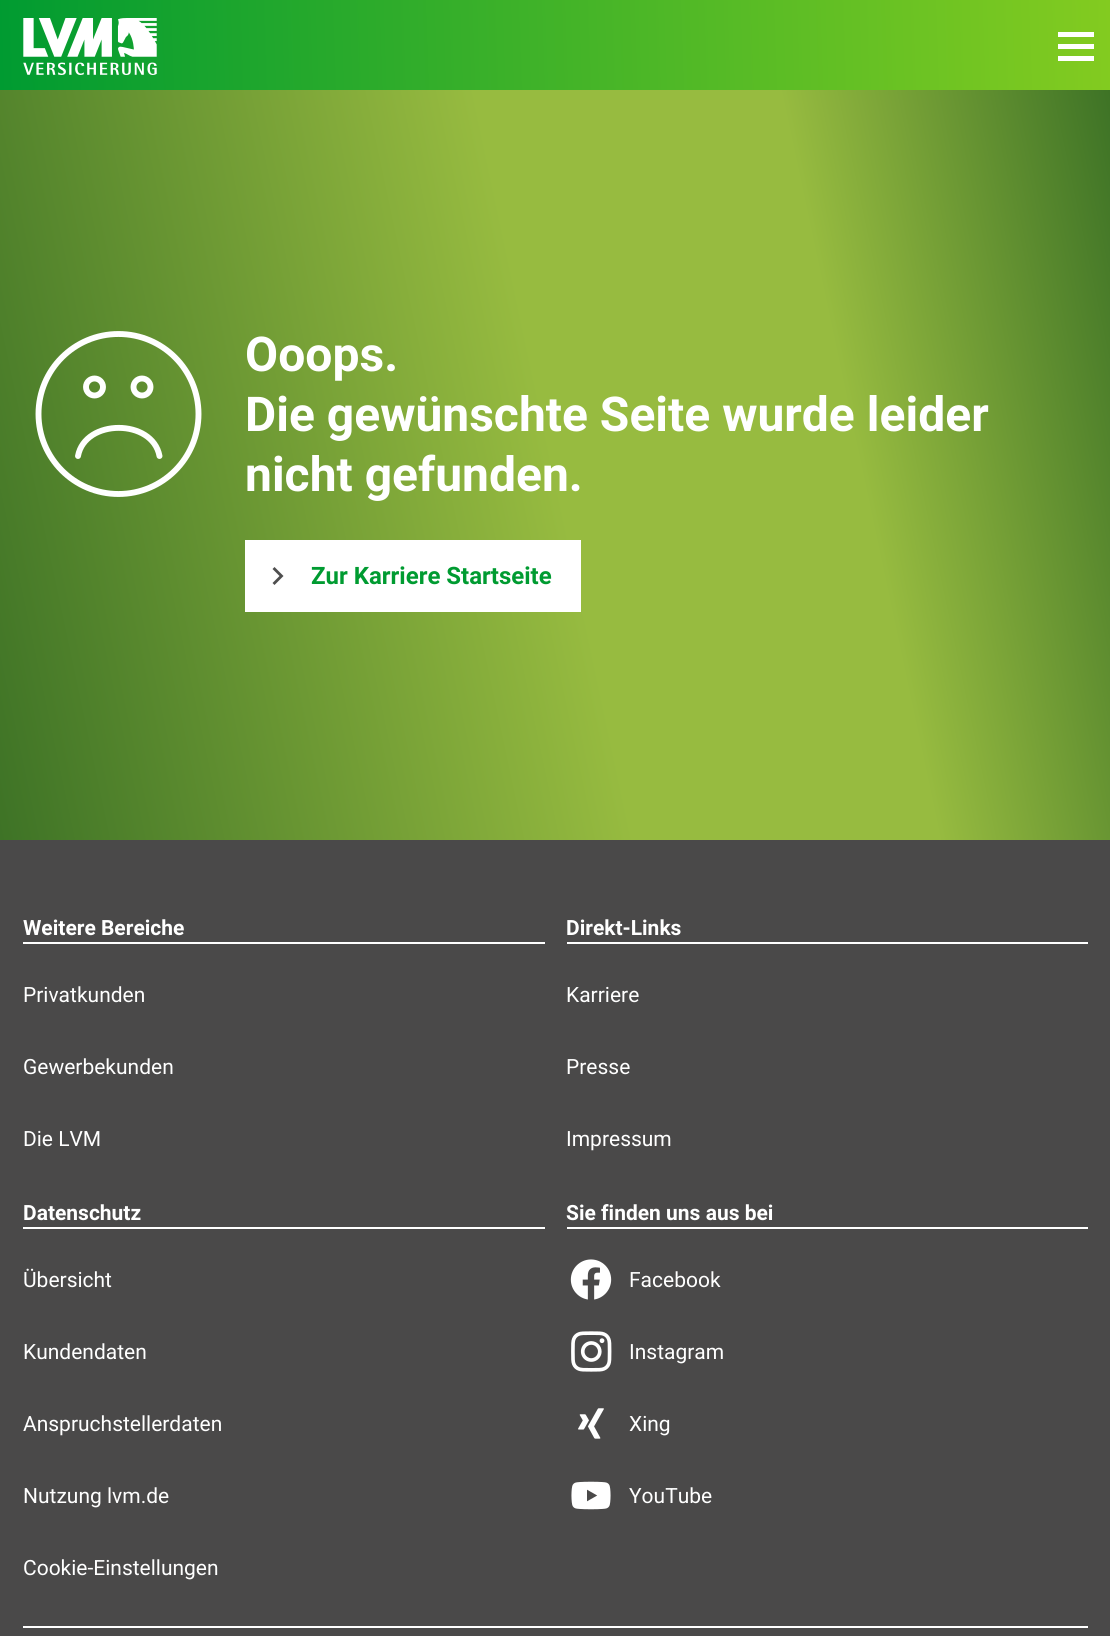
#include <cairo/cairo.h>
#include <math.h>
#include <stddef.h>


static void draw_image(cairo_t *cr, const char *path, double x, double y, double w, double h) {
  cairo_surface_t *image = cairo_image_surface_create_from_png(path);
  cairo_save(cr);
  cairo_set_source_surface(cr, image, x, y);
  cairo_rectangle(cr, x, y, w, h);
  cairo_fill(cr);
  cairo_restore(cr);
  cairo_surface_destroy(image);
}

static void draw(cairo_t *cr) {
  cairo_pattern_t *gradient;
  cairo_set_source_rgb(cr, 1, 1, 1);
  cairo_paint(cr);
  gradient = cairo_pattern_create_linear(-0.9, 64, 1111, 26);
  cairo_pattern_add_color_stop_rgba(gradient, 0, 0, 155 / 255.0, 49 / 255.0, 1);
  cairo_pattern_add_color_stop_rgba(gradient, 1, 131 / 255.0, 203 / 255.0, 32 / 255.0, 1);
  cairo_set_source(cr, gradient);
  cairo_pattern_destroy(gradient);
  cairo_rectangle(cr, 0, 0, 1110, 90);
  cairo_fill(cr);
  draw_image(cr, "images/1.png", 23, 18, 134, 57);
  cairo_set_source_rgb(cr, 1, 1, 1);
  cairo_rectangle(cr, 1058, 44, 36, 5);
  cairo_fill(cr);
  cairo_rectangle(cr, 1058, 32, 36, 5);
  cairo_fill(cr);
  cairo_rectangle(cr, 1058, 56, 36, 5);
  cairo_fill(cr);
  gradient = cairo_pattern_create_linear(-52, 594, 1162, 336);
  cairo_pattern_add_color_stop_rgba(gradient, 0, 62 / 255.0, 115 / 255.0, 38 / 255.0, 1);
  cairo_pattern_add_color_stop_rgba(gradient, 0.5, 151 / 255.0, 187 / 255.0, 64 / 255.0, 1);
  cairo_pattern_add_color_stop_rgba(gradient, 0.74, 151 / 255.0, 187 / 255.0, 64 / 255.0, 1);
  cairo_pattern_add_color_stop_rgba(gradient, 1, 62 / 255.0, 115 / 255.0, 38 / 255.0, 1);
  cairo_set_source(cr, gradient);
  cairo_pattern_destroy(gradient);
  cairo_rectangle(cr, 0, 90, 1110, 750);
  cairo_fill(cr);
  cairo_arc(cr, 118.5, 414, 80, 0, 2 * M_PI);
  cairo_set_source_rgb(cr, 1, 1, 1);
  cairo_set_line_width(cr, 5.9);
  cairo_stroke(cr);
  cairo_arc(cr, 94.5, 387, 8.5, 0, 2 * M_PI);
  cairo_stroke(cr);
  cairo_arc(cr, 142, 387, 8.5, 0, 2 * M_PI);
  cairo_stroke(cr);
  cairo_new_path(cr);
  cairo_move_to(cr, 159.5, 456);
  cairo_curve_to(cr, 152.5, 418.5, 85, 418.5, 78, 456);
  cairo_set_line_cap(cr, CAIRO_LINE_CAP_ROUND);
  cairo_stroke(cr);
  cairo_rectangle(cr, 245, 540, 336, 72);
  cairo_fill(cr);
  cairo_set_source_rgb(cr, 78 / 255.0, 78 / 255.0, 78 / 255.0);
  cairo_new_path(cr);
  cairo_move_to(cr, 272.5, 583);
  cairo_line_to(cr, 274.5, 585);
  cairo_line_to(cr, 283.5, 576);
  cairo_line_to(cr, 274.5, 567);
  cairo_line_to(cr, 272.5, 569);
  cairo_line_to(cr, 279.5, 576);
  cairo_close_path(cr);
  cairo_fill(cr);
  cairo_set_source_rgb(cr, 74 / 255.0, 73 / 255.0, 73 / 255.0);
  cairo_rectangle(cr, 0, 840, 1110, 796);
  cairo_fill(cr);
  cairo_set_source_rgb(cr, 1, 1, 1);
  cairo_rectangle(cr, 23, 942, 522, 2);
  cairo_fill(cr);
  cairo_rectangle(cr, 567, 942, 521, 2);
  cairo_fill(cr);
  cairo_rectangle(cr, 23, 1227, 522, 2);
  cairo_fill(cr);
  cairo_rectangle(cr, 567, 1227, 521, 2);
  cairo_fill(cr);
  draw_image(cr, "images/2.png", 570, 1259, 42, 41);
  draw_image(cr, "images/3.png", 571, 1331, 41, 41);
  draw_image(cr, "images/4.png", 578, 1408, 26, 31);
  draw_image(cr, "images/5.png", 571, 1481, 40, 29);
  cairo_rectangle(cr, 23, 1626, 1065, 2);
  cairo_fill(cr);
  cairo_select_font_face(cr, "Roboto", CAIRO_FONT_SLANT_NORMAL, CAIRO_FONT_WEIGHT_BOLD);
  cairo_set_font_size(cr, 48);
  cairo_move_to(cr, 245, 371);
  cairo_show_text(cr, "Ooops.");
  cairo_move_to(cr, 245, 431);
  cairo_show_text(cr, "Die gewünschte Seite wurde leider");
  cairo_move_to(cr, 245, 491);
  cairo_show_text(cr, "nicht gefunden.");
  cairo_set_font_size(cr, 24);
  cairo_set_source_rgb(cr, 0, 155 / 255.0, 49 / 255.0);
  cairo_move_to(cr, 311, 584);
  cairo_show_text(cr, "Zur Karriere Startseite");
  cairo_set_font_size(cr, 21);
  cairo_set_source_rgb(cr, 1, 1, 1);
  cairo_move_to(cr, 23, 935);
  cairo_show_text(cr, "Weitere Bereiche");
  cairo_select_font_face(cr, "Roboto", CAIRO_FONT_SLANT_NORMAL, CAIRO_FONT_WEIGHT_NORMAL);
  cairo_move_to(cr, 23, 1002);
  cairo_show_text(cr, "Privatkunden");
  cairo_move_to(cr, 23, 1074);
  cairo_show_text(cr, "Gewerbekunden");
  cairo_move_to(cr, 23, 1146);
  cairo_show_text(cr, "Die LVM");
  cairo_select_font_face(cr, "Roboto", CAIRO_FONT_SLANT_NORMAL, CAIRO_FONT_WEIGHT_BOLD);
  cairo_move_to(cr, 566, 935);
  cairo_show_text(cr, "Direkt-Links");
  cairo_select_font_face(cr, "Roboto", CAIRO_FONT_SLANT_NORMAL, CAIRO_FONT_WEIGHT_NORMAL);
  cairo_move_to(cr, 566, 1002);
  cairo_show_text(cr, "Karriere");
  cairo_move_to(cr, 566, 1074);
  cairo_show_text(cr, "Presse");
  cairo_move_to(cr, 566, 1146);
  cairo_show_text(cr, "Impressum");
  cairo_select_font_face(cr, "Roboto", CAIRO_FONT_SLANT_NORMAL, CAIRO_FONT_WEIGHT_BOLD);
  cairo_move_to(cr, 23, 1220);
  cairo_show_text(cr, "Datenschutz");
  cairo_select_font_face(cr, "Roboto", CAIRO_FONT_SLANT_NORMAL, CAIRO_FONT_WEIGHT_NORMAL);
  cairo_move_to(cr, 23, 1287);
  cairo_show_text(cr, "Übersicht");
  cairo_move_to(cr, 23, 1359);
  cairo_show_text(cr, "Kundendaten");
  cairo_move_to(cr, 23, 1431);
  cairo_show_text(cr, "Anspruchstellerdaten");
  cairo_move_to(cr, 23, 1503);
  cairo_show_text(cr, "Nutzung lvm.de");
  cairo_move_to(cr, 23, 1575);
  cairo_show_text(cr, "Cookie-Einstellungen");
  cairo_select_font_face(cr, "Roboto", CAIRO_FONT_SLANT_NORMAL, CAIRO_FONT_WEIGHT_BOLD);
  cairo_move_to(cr, 566, 1220);
  cairo_show_text(cr, "Sie finden uns aus bei");
  cairo_select_font_face(cr, "Roboto", CAIRO_FONT_SLANT_NORMAL, CAIRO_FONT_WEIGHT_NORMAL);
  cairo_move_to(cr, 629, 1287);
  cairo_show_text(cr, "Facebook");
  cairo_move_to(cr, 629, 1359);
  cairo_show_text(cr, "Instagram");
  cairo_move_to(cr, 629, 1431);
  cairo_show_text(cr, "Xing");
  cairo_move_to(cr, 629, 1503);
  cairo_show_text(cr, "YouTube");
}

int main(void) {
  cairo_surface_t *surface = cairo_image_surface_create(CAIRO_FORMAT_RGB24, 1110, 1636);
  cairo_t *cr = cairo_create(surface);
  cairo_font_options_t *options = cairo_font_options_create();
  cairo_font_options_set_hint_metrics(options, CAIRO_HINT_METRICS_OFF);
  cairo_font_options_set_hint_style(options, CAIRO_HINT_STYLE_NONE);
  cairo_set_font_options(cr, options);
  cairo_set_miter_limit(cr, 4);
  draw(cr);
  cairo_surface_write_to_png(surface, "out.png");
  cairo_font_options_destroy(options);
  cairo_destroy(cr);
  cairo_surface_destroy(surface);
  return 0;
}
